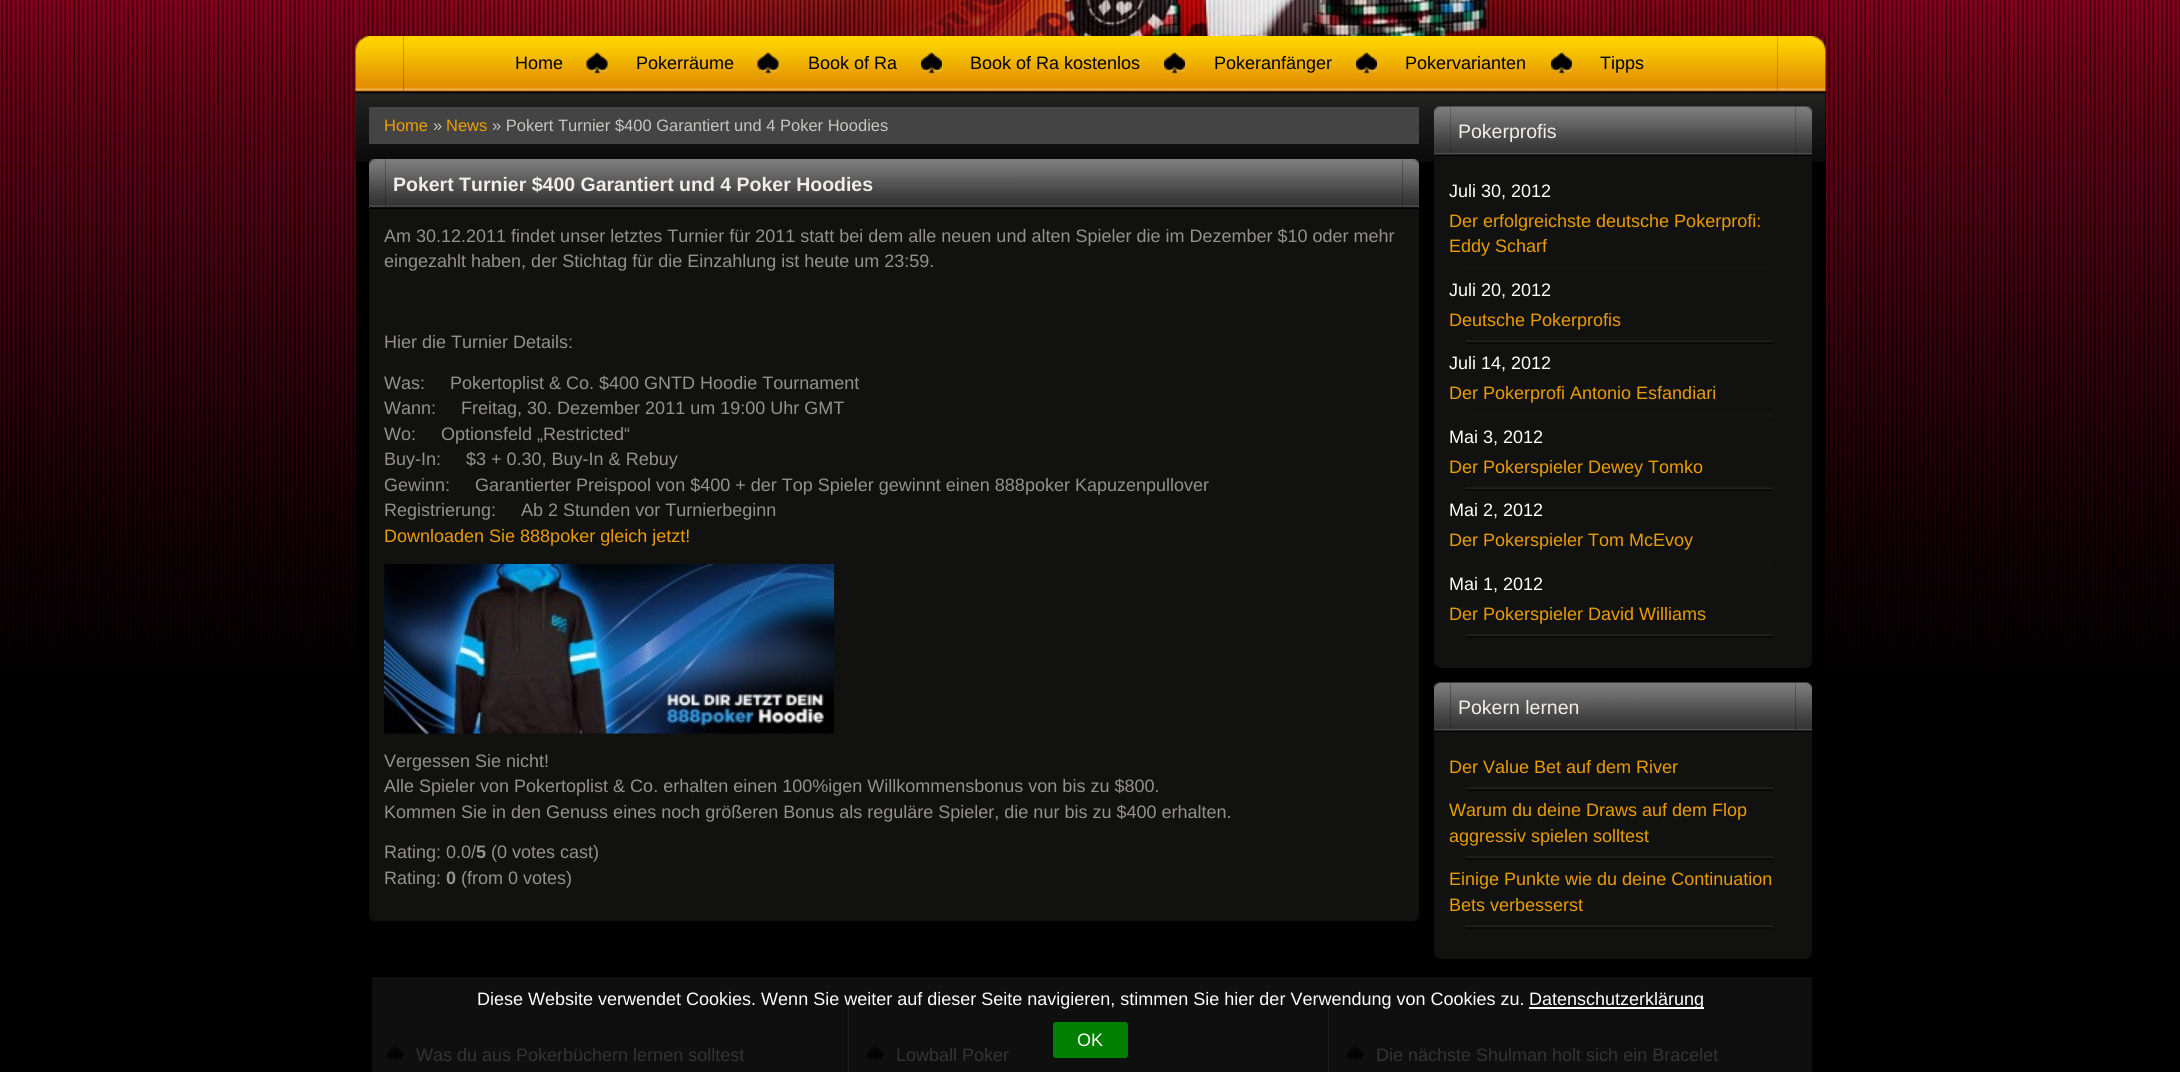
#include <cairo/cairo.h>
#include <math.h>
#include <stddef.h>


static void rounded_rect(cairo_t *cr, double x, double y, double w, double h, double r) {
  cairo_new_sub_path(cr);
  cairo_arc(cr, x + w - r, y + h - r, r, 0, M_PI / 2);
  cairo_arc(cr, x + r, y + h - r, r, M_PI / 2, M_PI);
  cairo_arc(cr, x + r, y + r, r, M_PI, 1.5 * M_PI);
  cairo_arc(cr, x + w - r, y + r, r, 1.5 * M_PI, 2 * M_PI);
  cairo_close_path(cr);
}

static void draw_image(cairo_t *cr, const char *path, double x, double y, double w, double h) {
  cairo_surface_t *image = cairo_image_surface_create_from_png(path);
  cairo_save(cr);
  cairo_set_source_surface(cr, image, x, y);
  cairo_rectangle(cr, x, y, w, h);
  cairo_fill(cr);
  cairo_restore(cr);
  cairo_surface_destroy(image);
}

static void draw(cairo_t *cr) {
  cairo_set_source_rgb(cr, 0, 0, 0);
  cairo_paint(cr);
  draw_image(cr, "images/1.png", 0, 0, 2180, 670);
  draw_image(cr, "images/2.png", 356, 0, 1470, 36);
  draw_image(cr, "images/3.png", 355, 36, 49, 56);
  draw_image(cr, "images/4.png", 1777, 36, 49, 56);
  draw_image(cr, "images/5.png", 403, 36, 1375, 56);
  draw_image(cr, "images/6.png", 586, 52, 22, 22);
  draw_image(cr, "images/7.png", 757, 52, 22, 22);
  draw_image(cr, "images/8.png", 921, 52, 21, 22);
  draw_image(cr, "images/9.png", 1164, 52, 21, 22);
  draw_image(cr, "images/9.png", 1356, 52, 21, 22);
  draw_image(cr, "images/8.png", 1551, 52, 21, 22);
  cairo_set_source_rgb(cr, 0, 0, 0);
  cairo_rectangle(cr, 356, 92, 1470, 578);
  cairo_fill(cr);
  draw_image(cr, "images/10.png", 355, 91, 1471, 71);
  cairo_set_source_rgb(cr, 68 / 255.0, 68 / 255.0, 68 / 255.0);
  cairo_rectangle(cr, 369, 107, 1050, 37);
  cairo_fill(cr);
  draw_image(cr, "images/11.png", 369, 159, 17, 49);
  draw_image(cr, "images/12.png", 1402, 159, 17, 49);
  draw_image(cr, "images/13.png", 385, 159, 1018, 49);
  cairo_set_source_rgb(cr, 17 / 255.0, 17 / 255.0, 16 / 255.0);
  cairo_rectangle(cr, 369, 209, 1050, 697);
  cairo_fill(cr);
  draw_image(cr, "images/14.png", 384, 564, 450, 170);
  draw_image(cr, "images/15.png", 369, 906, 6, 15);
  draw_image(cr, "images/16.png", 1413, 906, 6, 15);
  cairo_rectangle(cr, 375, 906, 1038, 15);
  cairo_fill(cr);
  draw_image(cr, "images/17.png", 1434, 106, 17, 50);
  draw_image(cr, "images/18.png", 1795, 106, 17, 50);
  draw_image(cr, "images/19.png", 1450, 106, 346, 50);
  cairo_rectangle(cr, 1434, 156, 378, 497);
  cairo_fill(cr);
  cairo_set_source_rgb(cr, 20 / 255.0, 20 / 255.0, 19 / 255.0);
  cairo_rectangle(cr, 1465, 267, 308, 3);
  cairo_fill(cr);
  draw_image(cr, "images/20.png", 1465, 340, 308, 4);
  cairo_rectangle(cr, 1465, 414, 308, 3);
  cairo_fill(cr);
  draw_image(cr, "images/20.png", 1465, 487, 308, 4);
  cairo_rectangle(cr, 1465, 561, 308, 3);
  cairo_fill(cr);
  draw_image(cr, "images/20.png", 1465, 634, 308, 4);
  draw_image(cr, "images/21.png", 1434, 653, 6, 15);
  draw_image(cr, "images/22.png", 1806, 653, 6, 15);
  cairo_set_source_rgb(cr, 17 / 255.0, 17 / 255.0, 16 / 255.0);
  cairo_rectangle(cr, 1440, 653, 366, 15);
  cairo_fill(cr);
  draw_image(cr, "images/23.png", 1434, 682, 17, 49);
  draw_image(cr, "images/24.png", 1795, 682, 17, 49);
  draw_image(cr, "images/25.png", 1450, 682, 346, 49);
  cairo_rectangle(cr, 1434, 732, 378, 212);
  cairo_fill(cr);
  draw_image(cr, "images/20.png", 1465, 787, 308, 4);
  draw_image(cr, "images/20.png", 1465, 856, 308, 4);
  draw_image(cr, "images/20.png", 1465, 925, 308, 4);
  draw_image(cr, "images/21.png", 1434, 944, 6, 15);
  draw_image(cr, "images/22.png", 1806, 944, 6, 15);
  cairo_rectangle(cr, 1440, 944, 366, 15);
  cairo_fill(cr);
  draw_image(cr, "images/26.png", 371, 977, 1442, 22);
  draw_image(cr, "images/27.png", 371, 999, 1442, 73);
  draw_image(cr, "images/28.png", 846, 999, 4, 73);
  draw_image(cr, "images/29.png", 386, 1045, 19, 18);
  draw_image(cr, "images/30.png", 1326, 999, 4, 73);
  draw_image(cr, "images/31.png", 866, 1045, 19, 18);
  draw_image(cr, "images/29.png", 1346, 1045, 19, 18);
  cairo_set_source_rgb(cr, 1, 1, 1);
  cairo_rectangle(cr, 1529, 1007, 175, 2);
  cairo_fill(cr);
  cairo_set_source_rgb(cr, 0, 128 / 255.0, 0);
  rounded_rect(cr, 1053, 1022, 75, 36, 3);
  cairo_fill(cr);
  cairo_select_font_face(cr, "Liberation Sans", CAIRO_FONT_SLANT_NORMAL, CAIRO_FONT_WEIGHT_NORMAL);
  cairo_set_font_size(cr, 18);
  cairo_set_source_rgb(cr, 0, 0, 0);
  cairo_move_to(cr, 515, 69);
  cairo_show_text(cr, "Home");
  cairo_move_to(cr, 636, 69);
  cairo_show_text(cr, "Pokerräume");
  cairo_move_to(cr, 808, 69);
  cairo_show_text(cr, "Book of Ra");
  cairo_move_to(cr, 970, 69);
  cairo_show_text(cr, "Book of Ra kostenlos");
  cairo_move_to(cr, 1214, 69);
  cairo_show_text(cr, "Pokeranfänger");
  cairo_move_to(cr, 1405, 69);
  cairo_show_text(cr, "Pokervarianten");
  cairo_move_to(cr, 1600, 69);
  cairo_show_text(cr, "Tipps");
  cairo_set_font_size(cr, 16.5);
  cairo_set_source_rgb(cr, 234 / 255.0, 157 / 255.0, 1 / 255.0);
  cairo_move_to(cr, 384, 131);
  cairo_show_text(cr, "Home");
  cairo_set_source_rgb(cr, 198 / 255.0, 197 / 255.0, 195 / 255.0);
  cairo_move_to(cr, 433, 131);
  cairo_show_text(cr, "»");
  cairo_set_source_rgb(cr, 234 / 255.0, 157 / 255.0, 1 / 255.0);
  cairo_move_to(cr, 446, 131);
  cairo_show_text(cr, "News");
  cairo_set_source_rgb(cr, 198 / 255.0, 197 / 255.0, 195 / 255.0);
  cairo_move_to(cr, 492, 131);
  cairo_show_text(cr, "» Pokert Turnier $400 Garantiert und 4 Poker Hoodies");
  cairo_select_font_face(cr, "Liberation Sans", CAIRO_FONT_SLANT_NORMAL, CAIRO_FONT_WEIGHT_BOLD);
  cairo_set_font_size(cr, 19.5);
  cairo_set_source_rgb(cr, 240 / 255.0, 238 / 255.0, 231 / 255.0);
  cairo_move_to(cr, 393, 191);
  cairo_show_text(cr, "Pokert Turnier $400 Garantiert und 4 Poker Hoodies");
  cairo_select_font_face(cr, "Liberation Sans", CAIRO_FONT_SLANT_NORMAL, CAIRO_FONT_WEIGHT_NORMAL);
  cairo_set_font_size(cr, 18);
  cairo_set_source_rgb(cr, 146 / 255.0, 145 / 255.0, 143 / 255.0);
  cairo_move_to(cr, 384, 242);
  cairo_show_text(cr, "Am 30.12.2011 findet unser letztes Turnier für 2011 statt bei dem alle neuen und alten Spieler die im Dezember $10 oder mehr");
  cairo_move_to(cr, 384, 267);
  cairo_show_text(cr, "eingezahlt haben, der Stichtag für die Einzahlung ist heute um 23:59.");
  cairo_move_to(cr, 384, 348);
  cairo_show_text(cr, "Hier die Turnier Details:");
  cairo_move_to(cr, 384, 389);
  cairo_show_text(cr, "Was:     Pokertoplist & Co. $400 GNTD Hoodie Tournament");
  cairo_move_to(cr, 384, 414);
  cairo_show_text(cr, "Wann:     Freitag, 30. Dezember 2011 um 19:00 Uhr GMT");
  cairo_move_to(cr, 384, 440);
  cairo_show_text(cr, "Wo:     Optionsfeld „Restricted“");
  cairo_move_to(cr, 384, 465);
  cairo_show_text(cr, "Buy-In:     $3 + 0.30, Buy-In & Rebuy");
  cairo_move_to(cr, 384, 491);
  cairo_show_text(cr, "Gewinn:     Garantierter Preispool von $400 + der Top Spieler gewinnt einen 888poker Kapuzenpullover");
  cairo_move_to(cr, 384, 516);
  cairo_show_text(cr, "Registrierung:     Ab 2 Stunden vor Turnierbeginn");
  cairo_set_source_rgb(cr, 234 / 255.0, 157 / 255.0, 1 / 255.0);
  cairo_move_to(cr, 384, 542);
  cairo_show_text(cr, "Downloaden Sie 888poker gleich jetzt!");
  cairo_set_source_rgb(cr, 146 / 255.0, 145 / 255.0, 143 / 255.0);
  cairo_move_to(cr, 384, 767);
  cairo_show_text(cr, "Vergessen Sie nicht!");
  cairo_move_to(cr, 384, 792);
  cairo_show_text(cr, "Alle Spieler von Pokertoplist & Co. erhalten einen 100%igen Willkommensbonus von bis zu $800.");
  cairo_move_to(cr, 384, 818);
  cairo_show_text(cr, "Kommen Sie in den Genuss eines noch größeren Bonus als reguläre Spieler, die nur bis zu $400 erhalten.");
  cairo_move_to(cr, 384, 858);
  cairo_show_text(cr, "Rating: 0.0/");
  cairo_select_font_face(cr, "Liberation Sans", CAIRO_FONT_SLANT_NORMAL, CAIRO_FONT_WEIGHT_BOLD);
  cairo_move_to(cr, 476, 858);
  cairo_show_text(cr, "5");
  cairo_select_font_face(cr, "Liberation Sans", CAIRO_FONT_SLANT_NORMAL, CAIRO_FONT_WEIGHT_NORMAL);
  cairo_move_to(cr, 491, 858);
  cairo_show_text(cr, "(0 votes cast)");
  cairo_move_to(cr, 384, 884);
  cairo_show_text(cr, "Rating:");
  cairo_select_font_face(cr, "Liberation Sans", CAIRO_FONT_SLANT_NORMAL, CAIRO_FONT_WEIGHT_BOLD);
  cairo_move_to(cr, 446, 884);
  cairo_show_text(cr, "0");
  cairo_select_font_face(cr, "Liberation Sans", CAIRO_FONT_SLANT_NORMAL, CAIRO_FONT_WEIGHT_NORMAL);
  cairo_move_to(cr, 461, 884);
  cairo_show_text(cr, "(from 0 votes)");
  cairo_set_font_size(cr, 19.5);
  cairo_set_source_rgb(cr, 240 / 255.0, 238 / 255.0, 231 / 255.0);
  cairo_move_to(cr, 1458, 138);
  cairo_show_text(cr, "Pokerprofis");
  cairo_set_font_size(cr, 18);
  cairo_set_source_rgb(cr, 1, 1, 1);
  cairo_move_to(cr, 1449, 197);
  cairo_show_text(cr, "Juli 30, 2012");
  cairo_set_source_rgb(cr, 234 / 255.0, 157 / 255.0, 1 / 255.0);
  cairo_move_to(cr, 1449, 227);
  cairo_show_text(cr, "Der erfolgreichste deutsche Pokerprofi:");
  cairo_move_to(cr, 1449, 252);
  cairo_show_text(cr, "Eddy Scharf");
  cairo_set_source_rgb(cr, 1, 1, 1);
  cairo_move_to(cr, 1449, 296);
  cairo_show_text(cr, "Juli 20, 2012");
  cairo_set_source_rgb(cr, 234 / 255.0, 157 / 255.0, 1 / 255.0);
  cairo_move_to(cr, 1449, 326);
  cairo_show_text(cr, "Deutsche Pokerprofis");
  cairo_set_source_rgb(cr, 1, 1, 1);
  cairo_move_to(cr, 1449, 369);
  cairo_show_text(cr, "Juli 14, 2012");
  cairo_set_source_rgb(cr, 234 / 255.0, 157 / 255.0, 1 / 255.0);
  cairo_move_to(cr, 1449, 399);
  cairo_show_text(cr, "Der Pokerprofi Antonio Esfandiari");
  cairo_set_source_rgb(cr, 1, 1, 1);
  cairo_move_to(cr, 1449, 443);
  cairo_show_text(cr, "Mai 3, 2012");
  cairo_set_source_rgb(cr, 234 / 255.0, 157 / 255.0, 1 / 255.0);
  cairo_move_to(cr, 1449, 473);
  cairo_show_text(cr, "Der Pokerspieler Dewey Tomko");
  cairo_set_source_rgb(cr, 1, 1, 1);
  cairo_move_to(cr, 1449, 516);
  cairo_show_text(cr, "Mai 2, 2012");
  cairo_set_source_rgb(cr, 234 / 255.0, 157 / 255.0, 1 / 255.0);
  cairo_move_to(cr, 1449, 546);
  cairo_show_text(cr, "Der Pokerspieler Tom McEvoy");
  cairo_set_source_rgb(cr, 1, 1, 1);
  cairo_move_to(cr, 1449, 590);
  cairo_show_text(cr, "Mai 1, 2012");
  cairo_set_source_rgb(cr, 234 / 255.0, 157 / 255.0, 1 / 255.0);
  cairo_move_to(cr, 1449, 620);
  cairo_show_text(cr, "Der Pokerspieler David Williams");
  cairo_set_font_size(cr, 19.5);
  cairo_set_source_rgb(cr, 240 / 255.0, 238 / 255.0, 231 / 255.0);
  cairo_move_to(cr, 1458, 714);
  cairo_show_text(cr, "Pokern lernen");
  cairo_set_font_size(cr, 18);
  cairo_set_source_rgb(cr, 234 / 255.0, 157 / 255.0, 1 / 255.0);
  cairo_move_to(cr, 1449, 773);
  cairo_show_text(cr, "Der Value Bet auf dem River");
  cairo_move_to(cr, 1449, 816);
  cairo_show_text(cr, "Warum du deine Draws auf dem Flop");
  cairo_move_to(cr, 1449, 842);
  cairo_show_text(cr, "aggressiv spielen solltest");
  cairo_move_to(cr, 1449, 885);
  cairo_show_text(cr, "Einige Punkte wie du deine Continuation");
  cairo_move_to(cr, 1449, 911);
  cairo_show_text(cr, "Bets verbesserst");
  cairo_set_source_rgb(cr, 51 / 255.0, 51 / 255.0, 51 / 255.0);
  cairo_move_to(cr, 416, 1061);
  cairo_show_text(cr, "Was du aus Pokerbüchern lernen solltest");
  cairo_move_to(cr, 896, 1061);
  cairo_show_text(cr, "Lowball Poker");
  cairo_move_to(cr, 1376, 1061);
  cairo_show_text(cr, "Die nächste Shulman holt sich ein Bracelet");
  cairo_set_source_rgb(cr, 1, 1, 1);
  cairo_move_to(cr, 477, 1005);
  cairo_show_text(cr, "Diese Website verwendet Cookies. Wenn Sie weiter auf dieser Seite navigieren, stimmen Sie hier der Verwendung von Cookies zu.");
  cairo_move_to(cr, 1529, 1005);
  cairo_show_text(cr, "Datenschutzerklärung");
  cairo_move_to(cr, 1077, 1046);
  cairo_show_text(cr, "OK");
}

int main(void) {
  cairo_surface_t *surface = cairo_image_surface_create(CAIRO_FORMAT_RGB24, 2180, 1072);
  cairo_t *cr = cairo_create(surface);
  cairo_font_options_t *options = cairo_font_options_create();
  cairo_font_options_set_hint_metrics(options, CAIRO_HINT_METRICS_OFF);
  cairo_font_options_set_hint_style(options, CAIRO_HINT_STYLE_NONE);
  cairo_set_font_options(cr, options);
  cairo_set_miter_limit(cr, 4);
  draw(cr);
  cairo_surface_write_to_png(surface, "out.png");
  cairo_font_options_destroy(options);
  cairo_destroy(cr);
  cairo_surface_destroy(surface);
  return 0;
}
